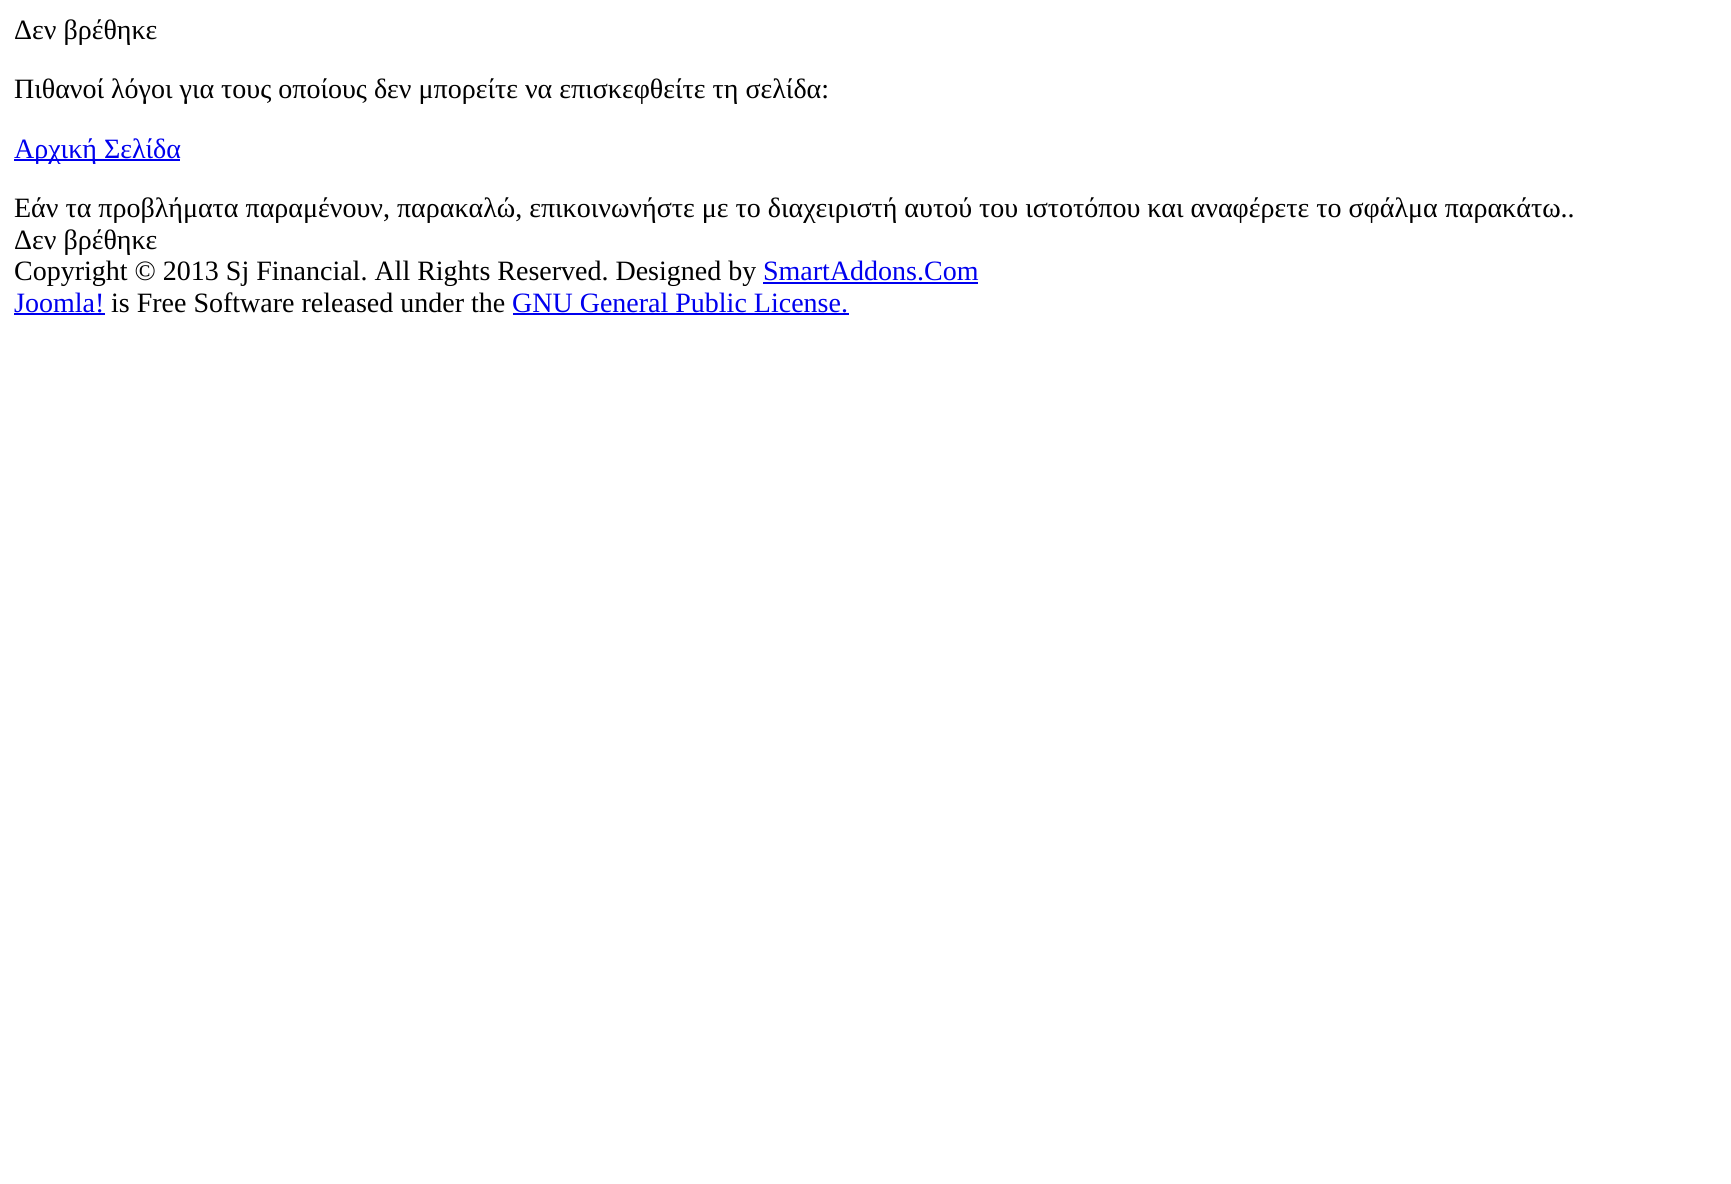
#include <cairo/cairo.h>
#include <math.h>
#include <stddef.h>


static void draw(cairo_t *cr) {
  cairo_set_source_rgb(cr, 1, 1, 1);
  cairo_paint(cr);
  cairo_set_source_rgb(cr, 0, 0, 238 / 255.0);
  cairo_rectangle(cr, 14, 159, 166, 2);
  cairo_fill(cr);
  cairo_rectangle(cr, 763, 282, 215, 2);
  cairo_fill(cr);
  cairo_rectangle(cr, 14, 313, 91, 2);
  cairo_fill(cr);
  cairo_rectangle(cr, 513, 313, 336, 2);
  cairo_fill(cr);
  cairo_select_font_face(cr, "Liberation Serif", CAIRO_FONT_SLANT_NORMAL, CAIRO_FONT_WEIGHT_NORMAL);
  cairo_set_font_size(cr, 28);
  cairo_set_source_rgb(cr, 0, 0, 0);
  cairo_move_to(cr, 14, 39);
  cairo_show_text(cr, "Δεν βρέθηκε");
  cairo_move_to(cr, 14, 98);
  cairo_show_text(cr, "Πιθανοί λόγοι για τους οποίους δεν μπορείτε να επισκεφθείτε τη σελίδα:");
  cairo_set_source_rgb(cr, 0, 0, 238 / 255.0);
  cairo_move_to(cr, 14, 158);
  cairo_show_text(cr, "Αρχική Σελίδα");
  cairo_set_source_rgb(cr, 0, 0, 0);
  cairo_move_to(cr, 14, 217);
  cairo_show_text(cr, "Εάν τα προβλήματα παραμένουν, παρακαλώ, επικοινωνήστε με το διαχειριστή αυτού του ιστοτόπου και αναφέρετε το σφάλμα παρακάτω..");
  cairo_move_to(cr, 14, 249);
  cairo_show_text(cr, "Δεν βρέθηκε");
  cairo_move_to(cr, 14, 280);
  cairo_show_text(cr, "Copyright © 2013 Sj Financial. All Rights Reserved. Designed by");
  cairo_set_source_rgb(cr, 0, 0, 238 / 255.0);
  cairo_move_to(cr, 763, 280);
  cairo_show_text(cr, "SmartAddons.Com");
  cairo_move_to(cr, 14, 312);
  cairo_show_text(cr, "Joomla!");
  cairo_set_source_rgb(cr, 0, 0, 0);
  cairo_move_to(cr, 111, 312);
  cairo_show_text(cr, "is Free Software released under the");
  cairo_set_source_rgb(cr, 0, 0, 238 / 255.0);
  cairo_move_to(cr, 512, 312);
  cairo_show_text(cr, "GNU General Public License.");
}

int main(void) {
  cairo_surface_t *surface = cairo_image_surface_create(CAIRO_FORMAT_RGB24, 1731, 1184);
  cairo_t *cr = cairo_create(surface);
  cairo_font_options_t *options = cairo_font_options_create();
  cairo_font_options_set_hint_metrics(options, CAIRO_HINT_METRICS_OFF);
  cairo_font_options_set_hint_style(options, CAIRO_HINT_STYLE_NONE);
  cairo_set_font_options(cr, options);
  cairo_set_miter_limit(cr, 4);
  draw(cr);
  cairo_surface_write_to_png(surface, "out.png");
  cairo_font_options_destroy(options);
  cairo_destroy(cr);
  cairo_surface_destroy(surface);
  return 0;
}
